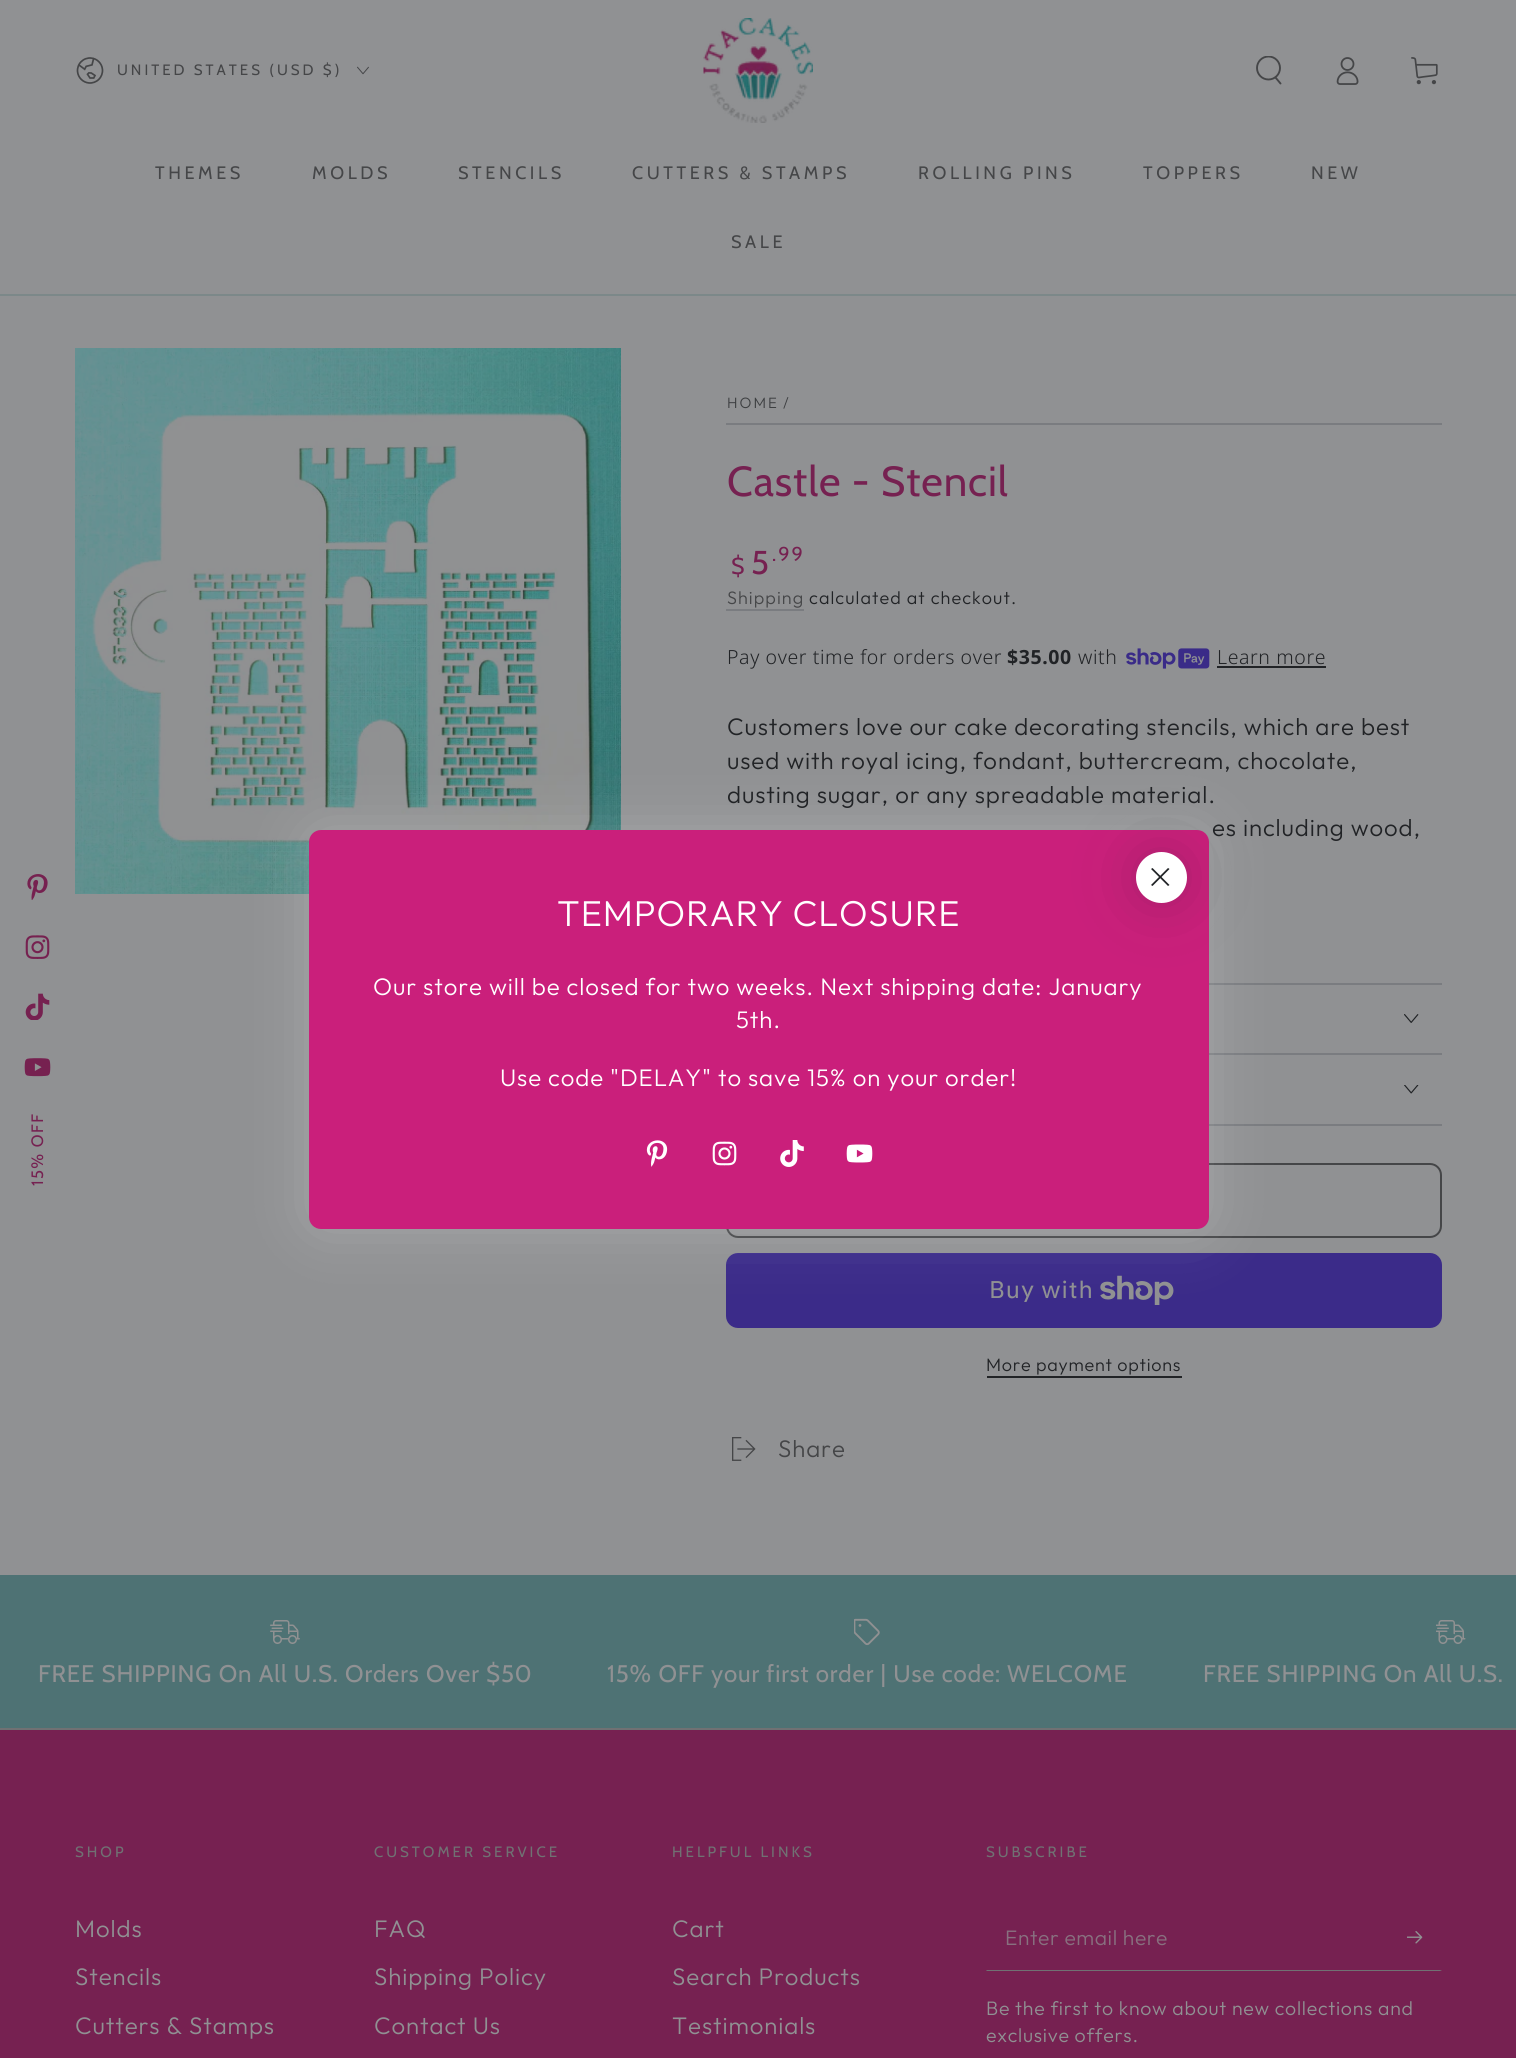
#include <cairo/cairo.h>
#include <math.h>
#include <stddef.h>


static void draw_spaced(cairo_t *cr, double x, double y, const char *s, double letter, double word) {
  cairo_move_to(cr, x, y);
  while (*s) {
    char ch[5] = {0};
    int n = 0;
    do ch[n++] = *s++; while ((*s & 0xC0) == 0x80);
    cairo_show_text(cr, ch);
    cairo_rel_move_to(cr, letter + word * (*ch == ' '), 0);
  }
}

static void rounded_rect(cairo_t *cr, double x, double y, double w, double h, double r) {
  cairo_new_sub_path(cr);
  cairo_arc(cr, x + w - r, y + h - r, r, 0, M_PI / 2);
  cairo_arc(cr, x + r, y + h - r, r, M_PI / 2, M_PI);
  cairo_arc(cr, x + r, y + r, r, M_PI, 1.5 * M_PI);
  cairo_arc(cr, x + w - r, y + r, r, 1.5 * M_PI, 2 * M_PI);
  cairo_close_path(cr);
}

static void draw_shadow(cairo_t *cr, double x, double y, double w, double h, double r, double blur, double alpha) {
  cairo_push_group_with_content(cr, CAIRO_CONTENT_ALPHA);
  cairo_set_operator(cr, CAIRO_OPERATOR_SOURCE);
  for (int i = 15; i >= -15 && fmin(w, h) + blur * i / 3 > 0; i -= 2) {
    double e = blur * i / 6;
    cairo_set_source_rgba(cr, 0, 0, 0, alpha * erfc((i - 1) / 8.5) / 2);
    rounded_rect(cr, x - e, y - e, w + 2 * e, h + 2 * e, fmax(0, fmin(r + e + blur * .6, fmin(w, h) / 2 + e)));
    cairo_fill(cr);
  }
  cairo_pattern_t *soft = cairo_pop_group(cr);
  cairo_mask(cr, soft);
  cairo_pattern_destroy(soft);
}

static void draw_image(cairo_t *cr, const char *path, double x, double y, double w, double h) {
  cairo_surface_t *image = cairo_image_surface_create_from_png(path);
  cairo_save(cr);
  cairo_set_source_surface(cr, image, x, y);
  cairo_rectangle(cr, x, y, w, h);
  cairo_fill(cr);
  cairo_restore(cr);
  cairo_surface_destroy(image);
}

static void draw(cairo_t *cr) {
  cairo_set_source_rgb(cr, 144 / 255.0, 145 / 255.0, 147 / 255.0);
  cairo_paint(cr);
  cairo_set_source_rgb(cr, 124 / 255.0, 136 / 255.0, 137 / 255.0);
  cairo_new_path(cr);
  cairo_move_to(cr, 0, 294);
  cairo_line_to(cr, 0, 296);
  cairo_line_to(cr, 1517, 296);
  cairo_line_to(cr, 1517, 2);
  cairo_line_to(cr, 1516, 2);
  cairo_line_to(cr, 1516, 294);
  cairo_close_path(cr);
  cairo_fill(cr);
  draw_image(cr, "images/1.png", 76, 57, 28, 27);
  draw_image(cr, "images/2.png", 357, 66, 12, 9);
  draw_image(cr, "images/3.png", 703, 18, 110, 105);
  cairo_save(cr);
  cairo_rectangle(cr, 1254, 56, 30, 30);
  cairo_clip(cr);
  cairo_arc(cr, 1268.5, 68, 11.5, 0, 2 * M_PI);
  cairo_set_source_rgb(cr, 69 / 255.0, 70 / 255.0, 72 / 255.0);
  cairo_set_line_width(cr, 1.9);
  cairo_stroke(cr);
  cairo_restore(cr);
  cairo_new_path(cr);
  cairo_move_to(cr, 1275.5, 77.5);
  cairo_line_to(cr, 1280.5, 83.5);
  cairo_set_source_rgb(cr, 69 / 255.0, 70 / 255.0, 72 / 255.0);
  cairo_set_line_width(cr, 1.9);
  cairo_set_line_cap(cr, CAIRO_LINE_CAP_ROUND);
  cairo_stroke(cr);
  draw_image(cr, "images/4.png", 1336, 57, 23, 28);
  draw_image(cr, "images/5.png", 1411, 57, 27, 28);
  draw_image(cr, "images/6.png", 75, 348, 546, 546);
  cairo_set_source_rgb(cr, 122 / 255.0, 124 / 255.0, 128 / 255.0);
  cairo_rectangle(cr, 726, 423, 716, 2);
  cairo_fill(cr);
  cairo_rectangle(cr, 726, 609, 78, 2);
  cairo_fill(cr);
  draw_image(cr, "images/7.png", 1126, 648, 84, 21);
  cairo_set_source_rgb(cr, 33 / 255.0, 35 / 255.0, 38 / 255.0);
  cairo_rectangle(cr, 1217, 666, 109, 2);
  cairo_fill(cr);
  cairo_set_source_rgb(cr, 122 / 255.0, 124 / 255.0, 128 / 255.0);
  cairo_rectangle(cr, 1209, 983, 233, 2);
  cairo_fill(cr);
  cairo_rectangle(cr, 1209, 1053, 233, 2);
  cairo_fill(cr);
  draw_image(cr, "images/8.png", 1404, 1014, 15, 9);
  cairo_rectangle(cr, 1209, 1124, 233, 2);
  cairo_fill(cr);
  draw_image(cr, "images/9.png", 1404, 1085, 15, 9);
  rounded_rect(cr, 727, 1164, 714, 73, 11);
  cairo_set_source_rgb(cr, 69 / 255.0, 70 / 255.0, 72 / 255.0);
  cairo_set_line_width(cr, 2);
  cairo_set_line_cap(cr, CAIRO_LINE_CAP_BUTT);
  cairo_stroke(cr);
  cairo_set_source_rgb(cr, 59 / 255.0, 43 / 255.0, 137 / 255.0);
  rounded_rect(cr, 726, 1253, 716, 75, 12);
  cairo_fill(cr);
  draw_image(cr, "images/10.png", 1100, 1275, 74, 30);
  cairo_set_source_rgb(cr, 33 / 255.0, 35 / 255.0, 38 / 255.0);
  cairo_rectangle(cr, 987, 1376, 195, 2);
  cairo_fill(cr);
  draw_image(cr, "images/11.png", 732, 1437, 24, 24);
  cairo_set_source_rgb(cr, 78 / 255.0, 114 / 255.0, 116 / 255.0);
  cairo_rectangle(cr, 0, 1575, 1516, 153);
  cairo_fill(cr);
  draw_image(cr, "images/12.png", 270, 1620, 30, 24);
  draw_image(cr, "images/13.png", 854, 1618, 26, 28);
  draw_image(cr, "images/14.png", 1436, 1620, 30, 24);
  cairo_set_source_rgb(cr, 118 / 255.0, 33 / 255.0, 81 / 255.0);
  cairo_rectangle(cr, 0, 1730, 1516, 328);
  cairo_fill(cr);
  cairo_set_source_rgb(cr, 112 / 255.0, 113 / 255.0, 115 / 255.0);
  cairo_rectangle(cr, 0, 1728, 1516, 2);
  cairo_fill(cr);
  cairo_new_path(cr);
  cairo_move_to(cr, 1442, 1971);
  cairo_line_to(cr, 986, 1971);
  cairo_line_to(cr, 987, 1970);
  cairo_line_to(cr, 1440, 1970);
  cairo_close_path(cr);
  cairo_fill(cr);
  draw_image(cr, "images/15.png", 1407, 1931, 16, 13);
  cairo_set_source_rgb(cr, 1, 1, 1);
  draw_shadow(cr, 309, 830, 900, 399, 12, 30, 0.2);
  cairo_set_source_rgb(cr, 202 / 255.0, 31 / 255.0, 123 / 255.0);
  rounded_rect(cr, 309, 830, 900, 399, 12);
  cairo_fill(cr);
  draw_image(cr, "images/16.png", 646, 1140, 22, 27);
  draw_image(cr, "images/17.png", 712, 1141, 25, 25);
  draw_image(cr, "images/18.png", 780, 1140, 24, 27);
  draw_image(cr, "images/19.png", 846, 1144, 27, 19);
  cairo_set_source_rgb(cr, 33 / 255.0, 35 / 255.0, 38 / 255.0);
  draw_shadow(cr, 1136, 852, 51, 51, 25.5, 30, 0.2);
  cairo_set_source_rgb(cr, 1, 1, 1);
  cairo_arc(cr, 1161.5, 877.5, 25.5, 0, 2 * M_PI);
  cairo_fill(cr);
  cairo_set_source_rgb(cr, 33 / 255.0, 35 / 255.0, 38 / 255.0);
  cairo_new_path(cr);
  cairo_move_to(cr, 1152.5, 868);
  cairo_line_to(cr, 1169.5, 885);
  cairo_line_to(cr, 1168, 886);
  cairo_line_to(cr, 1151, 869);
  cairo_close_path(cr);
  cairo_fill(cr);
  cairo_new_path(cr);
  cairo_move_to(cr, 1168, 868);
  cairo_line_to(cr, 1169.5, 869);
  cairo_line_to(cr, 1152.5, 886);
  cairo_line_to(cr, 1151, 885);
  cairo_close_path(cr);
  cairo_fill(cr);
  draw_image(cr, "images/20.png", 27, 874, 21, 26);
  draw_image(cr, "images/21.png", 25, 935, 25, 24);
  draw_image(cr, "images/22.png", 25, 993, 25, 27);
  draw_image(cr, "images/23.png", 24, 1058, 27, 19);
  cairo_select_font_face(cr, "Cabin", CAIRO_FONT_SLANT_NORMAL, CAIRO_FONT_WEIGHT_NORMAL);
  cairo_set_font_size(cr, 15);
  cairo_set_source_rgb(cr, 69 / 255.0, 70 / 255.0, 72 / 255.0);
  draw_spaced(cr, 117, 75, "UNITED STATES (USD $)", 3, 0);
  cairo_set_font_size(cr, 18);
  draw_spaced(cr, 155, 179, "THEMES", 3.6, 0);
  draw_spaced(cr, 312, 179, "MOLDS", 3.6, 0);
  draw_spaced(cr, 458, 179, "STENCILS", 3.6, 0);
  draw_spaced(cr, 632, 179, "CUTTERS & STAMPS", 3.6, 0);
  draw_spaced(cr, 918, 179, "ROLLING PINS", 3.6, 0);
  draw_spaced(cr, 1143, 179, "TOPPERS", 3.6, 0);
  draw_spaced(cr, 1311, 179, "NEW", 3.6, 0);
  draw_spaced(cr, 731, 248, "SALE", 3.6, 0);
  cairo_select_font_face(cr, "Outfit Light", CAIRO_FONT_SLANT_NORMAL, CAIRO_FONT_WEIGHT_NORMAL);
  cairo_set_font_size(cr, 15);
  cairo_set_source_rgb(cr, 61 / 255.0, 63 / 255.0, 65 / 255.0);
  draw_spaced(cr, 727, 408, "HOME", 2, 0);
  draw_spaced(cr, 783, 408, "/", 2, 0);
  cairo_select_font_face(cr, "Cabin", CAIRO_FONT_SLANT_NORMAL, CAIRO_FONT_WEIGHT_NORMAL);
  cairo_set_font_size(cr, 42);
  cairo_set_source_rgb(cr, 118 / 255.0, 33 / 255.0, 81 / 255.0);
  draw_spaced(cr, 727, 496, "Castle - Stencil", 0.9, 0);
  cairo_set_font_size(cr, 23);
  draw_spaced(cr, 731, 574, "$", 2, 0);
  cairo_set_font_size(cr, 33);
  draw_spaced(cr, 751, 574, "5", 2, 0);
  cairo_set_font_size(cr, 20);
  draw_spaced(cr, 772, 561, ".99", 2, 0);
  cairo_select_font_face(cr, "Outfit Light", CAIRO_FONT_SLANT_NORMAL, CAIRO_FONT_WEIGHT_NORMAL);
  cairo_set_font_size(cr, 18);
  cairo_set_source_rgb(cr, 69 / 255.0, 70 / 255.0, 72 / 255.0);
  draw_spaced(cr, 727, 604, "Shipping", 1.05, 0);
  cairo_set_source_rgb(cr, 33 / 255.0, 35 / 255.0, 38 / 255.0);
  draw_spaced(cr, 809, 604, "calculated at checkout.", 1.05, 0);
  cairo_select_font_face(cr, "Noto Sans Light", CAIRO_FONT_SLANT_NORMAL, CAIRO_FONT_WEIGHT_NORMAL);
  cairo_set_font_size(cr, 19.5);
  draw_spaced(cr, 727, 664, "Pay over time for orders over", 0.6, 0);
  cairo_select_font_face(cr, "Noto Sans", CAIRO_FONT_SLANT_NORMAL, CAIRO_FONT_WEIGHT_BOLD);
  draw_spaced(cr, 1007, 664, "$35.00", 0.6, 0);
  cairo_select_font_face(cr, "Noto Sans Light", CAIRO_FONT_SLANT_NORMAL, CAIRO_FONT_WEIGHT_NORMAL);
  draw_spaced(cr, 1078, 664, "with", 0.6, 0);
  draw_spaced(cr, 1217, 664, "Learn more", 0.6, 0);
  cairo_select_font_face(cr, "Outfit Light", CAIRO_FONT_SLANT_NORMAL, CAIRO_FONT_WEIGHT_NORMAL);
  cairo_set_font_size(cr, 24);
  draw_spaced(cr, 727, 735, "Customers love our cake decorating stencils, which are best", 0.9, 0);
  draw_spaced(cr, 727, 769, "used with royal icing, fondant, buttercream, chocolate,", 0.9, 0);
  draw_spaced(cr, 727, 803, "dusting sugar, or any spreadable material.", 0.9, 0);
  draw_spaced(cr, 1212, 836, "es including wood,", 0.9, 0);
  cairo_select_font_face(cr, "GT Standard", CAIRO_FONT_SLANT_NORMAL, CAIRO_FONT_WEIGHT_NORMAL);
  cairo_set_source_rgb(cr, 144 / 255.0, 145 / 255.0, 147 / 255.0);
  draw_spaced(cr, 989, 1298, "Buy with", 0.9, 0);
  cairo_select_font_face(cr, "Outfit Light", CAIRO_FONT_SLANT_NORMAL, CAIRO_FONT_WEIGHT_NORMAL);
  cairo_set_font_size(cr, 18);
  cairo_set_source_rgb(cr, 33 / 255.0, 35 / 255.0, 38 / 255.0);
  draw_spaced(cr, 986, 1371, "More payment options", 0.75, 0);
  cairo_set_font_size(cr, 24);
  cairo_set_source_rgb(cr, 69 / 255.0, 70 / 255.0, 72 / 255.0);
  draw_spaced(cr, 778, 1457, "Share", 0.9, 0);
  cairo_select_font_face(cr, "Cabin", CAIRO_FONT_SLANT_NORMAL, CAIRO_FONT_WEIGHT_NORMAL);
  cairo_set_source_rgb(cr, 144 / 255.0, 145 / 255.0, 147 / 255.0);
  draw_spaced(cr, 38, 1682, "FREE SHIPPING On All U.S. Orders Over $50", 0.9, 0);
  draw_spaced(cr, 607, 1682, "15% OFF your first order | Use code: WELCOME", 0.9, 0);
  draw_spaced(cr, 1203, 1682, "FREE SHIPPING On All U.S.", 0.9, 0);
  cairo_set_font_size(cr, 15);
  cairo_set_source_rgb(cr, 112 / 255.0, 113 / 255.0, 115 / 255.0);
  draw_spaced(cr, 75, 1857, "SHOP", 3, 0);
  cairo_select_font_face(cr, "Outfit Light", CAIRO_FONT_SLANT_NORMAL, CAIRO_FONT_WEIGHT_NORMAL);
  cairo_set_font_size(cr, 24);
  cairo_set_source_rgb(cr, 144 / 255.0, 145 / 255.0, 147 / 255.0);
  draw_spaced(cr, 75, 1937, "Molds", 0.9, 0);
  draw_spaced(cr, 75, 1985, "Stencils", 0.9, 0);
  draw_spaced(cr, 75, 2034, "Cutters & Stamps", 0.9, 0);
  cairo_select_font_face(cr, "Cabin", CAIRO_FONT_SLANT_NORMAL, CAIRO_FONT_WEIGHT_NORMAL);
  cairo_set_font_size(cr, 15);
  cairo_set_source_rgb(cr, 112 / 255.0, 113 / 255.0, 115 / 255.0);
  draw_spaced(cr, 374, 1857, "CUSTOMER SERVICE", 3, 0);
  cairo_select_font_face(cr, "Outfit Light", CAIRO_FONT_SLANT_NORMAL, CAIRO_FONT_WEIGHT_NORMAL);
  cairo_set_font_size(cr, 24);
  cairo_set_source_rgb(cr, 144 / 255.0, 145 / 255.0, 147 / 255.0);
  draw_spaced(cr, 374, 1937, "FAQ", 0.9, 0);
  draw_spaced(cr, 374, 1985, "Shipping Policy", 0.9, 0);
  draw_spaced(cr, 374, 2034, "Contact Us", 0.9, 0);
  cairo_select_font_face(cr, "Cabin", CAIRO_FONT_SLANT_NORMAL, CAIRO_FONT_WEIGHT_NORMAL);
  cairo_set_font_size(cr, 15);
  cairo_set_source_rgb(cr, 112 / 255.0, 113 / 255.0, 115 / 255.0);
  draw_spaced(cr, 672, 1857, "HELPFUL LINKS", 3, 0);
  cairo_select_font_face(cr, "Outfit Light", CAIRO_FONT_SLANT_NORMAL, CAIRO_FONT_WEIGHT_NORMAL);
  cairo_set_font_size(cr, 24);
  cairo_set_source_rgb(cr, 144 / 255.0, 145 / 255.0, 147 / 255.0);
  draw_spaced(cr, 672, 1937, "Cart", 0.9, 0);
  draw_spaced(cr, 672, 1985, "Search Products", 0.9, 0);
  draw_spaced(cr, 672, 2034, "Testimonials", 0.9, 0);
  cairo_select_font_face(cr, "Cabin", CAIRO_FONT_SLANT_NORMAL, CAIRO_FONT_WEIGHT_NORMAL);
  cairo_set_font_size(cr, 15);
  cairo_set_source_rgb(cr, 112 / 255.0, 113 / 255.0, 115 / 255.0);
  draw_spaced(cr, 986, 1857, "SUBSCRIBE", 3, 0);
  cairo_select_font_face(cr, "Outfit Light", CAIRO_FONT_SLANT_NORMAL, CAIRO_FONT_WEIGHT_NORMAL);
  cairo_set_font_size(cr, 21);
  cairo_set_source_rgb(cr, 136 / 255.0, 112 / 255.0, 127 / 255.0);
  draw_spaced(cr, 1005, 1945, "Enter email here", 0.6, 0);
  cairo_set_font_size(cr, 19.5);
  cairo_set_source_rgb(cr, 144 / 255.0, 145 / 255.0, 147 / 255.0);
  draw_spaced(cr, 986, 2015, "Be the first to know about new collections and", 0.75, 0);
  draw_spaced(cr, 986, 2042, "exclusive offers.", 0.75, 0);
  cairo_set_font_size(cr, 36);
  cairo_set_source_rgb(cr, 1, 1, 1);
  draw_spaced(cr, 557, 926, "TEMPORARY CLOSURE", 0.9, 0);
  cairo_set_font_size(cr, 24);
  draw_spaced(cr, 373, 995, "Our store will be closed for two weeks. Next shipping date: January", 0.9, 0);
  draw_spaced(cr, 736, 1028, "5th.", 0.9, 0);
  draw_spaced(cr, 500, 1086, "Use code \"DELAY\" to save 15% on your order!", 0.9, 0);
  cairo_select_font_face(cr, "Cabin", CAIRO_FONT_SLANT_NORMAL, CAIRO_FONT_WEIGHT_NORMAL);
  cairo_set_font_size(cr, 16.5);
  cairo_set_source_rgb(cr, 118 / 255.0, 33 / 255.0, 81 / 255.0);
  cairo_save(cr);
  cairo_translate(cr, 43, 1186);
  cairo_rotate(cr, -90 * M_PI / 180);
  draw_spaced(cr, 0, 0, "15% OFF", 1.5, 0);
  cairo_restore(cr);
}

int main(void) {
  cairo_surface_t *surface = cairo_image_surface_create(CAIRO_FORMAT_RGB24, 1516, 2058);
  cairo_t *cr = cairo_create(surface);
  cairo_font_options_t *options = cairo_font_options_create();
  cairo_font_options_set_hint_metrics(options, CAIRO_HINT_METRICS_OFF);
  cairo_font_options_set_hint_style(options, CAIRO_HINT_STYLE_NONE);
  cairo_set_font_options(cr, options);
  cairo_set_miter_limit(cr, 4);
  draw(cr);
  cairo_surface_write_to_png(surface, "out.png");
  cairo_font_options_destroy(options);
  cairo_destroy(cr);
  cairo_surface_destroy(surface);
  return 0;
}
